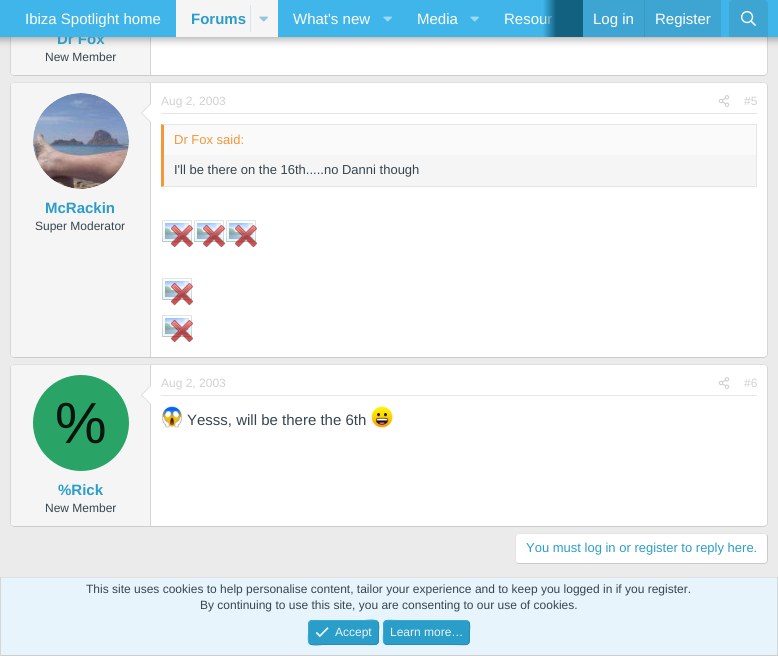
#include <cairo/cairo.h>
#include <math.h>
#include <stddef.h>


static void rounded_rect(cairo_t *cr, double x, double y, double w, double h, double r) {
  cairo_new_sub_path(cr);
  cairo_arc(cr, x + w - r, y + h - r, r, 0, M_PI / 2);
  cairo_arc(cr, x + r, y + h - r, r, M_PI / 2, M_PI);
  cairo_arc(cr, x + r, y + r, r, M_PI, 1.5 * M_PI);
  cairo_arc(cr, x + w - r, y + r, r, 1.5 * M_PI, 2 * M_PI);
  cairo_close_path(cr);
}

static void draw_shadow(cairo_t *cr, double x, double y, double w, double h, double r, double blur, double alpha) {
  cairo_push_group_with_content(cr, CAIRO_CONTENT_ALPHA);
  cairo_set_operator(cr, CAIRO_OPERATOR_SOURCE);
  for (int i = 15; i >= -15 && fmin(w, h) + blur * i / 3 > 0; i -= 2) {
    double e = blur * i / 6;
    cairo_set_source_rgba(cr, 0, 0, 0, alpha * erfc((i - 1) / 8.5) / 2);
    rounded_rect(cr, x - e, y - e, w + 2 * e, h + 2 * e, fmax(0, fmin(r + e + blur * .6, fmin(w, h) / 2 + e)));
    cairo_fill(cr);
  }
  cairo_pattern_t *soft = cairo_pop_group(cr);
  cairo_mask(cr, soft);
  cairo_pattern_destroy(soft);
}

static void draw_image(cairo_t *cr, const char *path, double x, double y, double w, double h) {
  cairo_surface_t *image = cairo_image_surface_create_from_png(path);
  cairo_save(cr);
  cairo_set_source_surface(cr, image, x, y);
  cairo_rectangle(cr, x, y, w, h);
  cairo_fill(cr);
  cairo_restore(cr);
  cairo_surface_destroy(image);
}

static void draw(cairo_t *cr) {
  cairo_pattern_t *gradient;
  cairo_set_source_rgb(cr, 235 / 255.0, 235 / 255.0, 235 / 255.0);
  cairo_paint(cr);
  cairo_set_source_rgb(cr, 1, 1, 1);
  rounded_rect(cr, 10, -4, 758, 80, 4);
  cairo_fill(cr);
  cairo_new_path(cr);
  cairo_move_to(cr, 766.5, -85.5);
  cairo_curve_to(cr, 767, -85, 767.5, -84, 767.5, -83);
  cairo_line_to(cr, 767.5, 72);
  cairo_curve_to(cr, 767.5, 73, 767, 74, 766.5, 74.5);
  cairo_set_source_rgb(cr, 214 / 255.0, 214 / 255.0, 214 / 255.0);
  cairo_set_line_width(cr, 1);
  cairo_stroke(cr);
  cairo_new_path(cr);
  cairo_move_to(cr, 766.5, 74.5);
  cairo_line_to(cr, 764, 75.5);
  cairo_line_to(cr, 14, 75.5);
  cairo_line_to(cr, 11.5, 74.5);
  cairo_set_source_rgb(cr, 204 / 255.0, 204 / 255.0, 204 / 255.0);
  cairo_stroke(cr);
  cairo_new_path(cr);
  cairo_move_to(cr, 11.5, 74.5);
  cairo_curve_to(cr, 11, 74, 10.5, 73, 10.5, 72);
  cairo_line_to(cr, 10.5, -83);
  cairo_curve_to(cr, 10.5, -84, 11, -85, 11.5, -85.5);
  cairo_set_source_rgb(cr, 214 / 255.0, 214 / 255.0, 214 / 255.0);
  cairo_stroke(cr);
  cairo_set_source_rgb(cr, 245 / 255.0, 245 / 255.0, 245 / 255.0);
  cairo_new_path(cr);
  cairo_move_to(cr, 14, -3);
  cairo_line_to(cr, 151, -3);
  cairo_line_to(cr, 151, 75);
  cairo_line_to(cr, 14, 75);
  cairo_curve_to(cr, 12.5, 75, 11, 73.5, 11, 72);
  cairo_line_to(cr, 11, 0);
  cairo_curve_to(cr, 11, -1.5, 12.5, -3, 14, -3);
  cairo_close_path(cr);
  cairo_fill(cr);
  cairo_set_source_rgb(cr, 214 / 255.0, 214 / 255.0, 214 / 255.0);
  cairo_rectangle(cr, 150, 37, 1, 38);
  cairo_fill(cr);
  cairo_set_source_rgb(cr, 0, 0, 0);
  draw_shadow(cr, -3, -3, 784, 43, 0, 4, 0.3);
  cairo_set_source_rgb(cr, 1, 1, 1);
  rounded_rect(cr, 10, 82, 758, 276, 4);
  cairo_fill(cr);
  cairo_new_path(cr);
  cairo_move_to(cr, 11.5, 83.5);
  cairo_line_to(cr, 14, 82.5);
  cairo_line_to(cr, 764, 82.5);
  cairo_line_to(cr, 766.5, 83.5);
  cairo_set_source_rgb(cr, 224 / 255.0, 224 / 255.0, 224 / 255.0);
  cairo_stroke(cr);
  cairo_new_path(cr);
  cairo_move_to(cr, 766.5, 83.5);
  cairo_curve_to(cr, 767, 84, 767.5, 85, 767.5, 86);
  cairo_line_to(cr, 767.5, 354);
  cairo_curve_to(cr, 767.5, 355, 767, 356, 766.5, 356.5);
  cairo_set_source_rgb(cr, 214 / 255.0, 214 / 255.0, 214 / 255.0);
  cairo_stroke(cr);
  cairo_new_path(cr);
  cairo_move_to(cr, 766.5, 356.5);
  cairo_line_to(cr, 764, 357.5);
  cairo_line_to(cr, 14, 357.5);
  cairo_line_to(cr, 11.5, 356.5);
  cairo_set_source_rgb(cr, 204 / 255.0, 204 / 255.0, 204 / 255.0);
  cairo_stroke(cr);
  cairo_new_path(cr);
  cairo_move_to(cr, 11.5, 356.5);
  cairo_curve_to(cr, 11, 356, 10.5, 355, 10.5, 354);
  cairo_line_to(cr, 10.5, 86);
  cairo_curve_to(cr, 10.5, 85, 11, 84, 11.5, 83.5);
  cairo_set_source_rgb(cr, 214 / 255.0, 214 / 255.0, 214 / 255.0);
  cairo_stroke(cr);
  cairo_set_source_rgb(cr, 229 / 255.0, 229 / 255.0, 229 / 255.0);
  cairo_rectangle(cr, 161, 113, 596, 1);
  cairo_fill(cr);
  draw_image(cr, "images/4.png", 718, 95, 12, 12);
  cairo_set_source_rgb(cr, 245 / 255.0, 245 / 255.0, 245 / 255.0);
  cairo_rectangle(cr, 164, 155, 592, 31);
  cairo_fill(cr);
  cairo_set_source_rgb(cr, 229 / 255.0, 229 / 255.0, 229 / 255.0);
  cairo_new_path(cr);
  cairo_move_to(cr, 161, 124);
  cairo_line_to(cr, 757, 124);
  cairo_line_to(cr, 756, 125);
  cairo_line_to(cr, 164, 125);
  cairo_close_path(cr);
  cairo_fill(cr);
  cairo_rectangle(cr, 756, 124, 1, 63);
  cairo_fill(cr);
  cairo_new_path(cr);
  cairo_move_to(cr, 757, 187);
  cairo_line_to(cr, 161, 187);
  cairo_line_to(cr, 164, 186);
  cairo_line_to(cr, 756, 186);
  cairo_close_path(cr);
  cairo_fill(cr);
  cairo_set_source_rgb(cr, 244 / 255.0, 151 / 255.0, 57 / 255.0);
  cairo_new_path(cr);
  cairo_move_to(cr, 161, 187);
  cairo_line_to(cr, 161, 124);
  cairo_line_to(cr, 164, 125);
  cairo_line_to(cr, 164, 186);
  cairo_close_path(cr);
  cairo_fill(cr);
  cairo_set_source_rgb(cr, 250 / 255.0, 250 / 255.0, 250 / 255.0);
  cairo_rectangle(cr, 164, 125, 592, 30);
  cairo_fill(cr);
  draw_image(cr, "images/5.png", 162, 220, 31, 27);
  draw_image(cr, "images/5.png", 194, 220, 31, 27);
  draw_image(cr, "images/5.png", 226, 220, 31, 27);
  draw_image(cr, "images/5.png", 162, 278, 31, 27);
  draw_image(cr, "images/5.png", 162, 315, 31, 27);
  cairo_set_source_rgb(cr, 245 / 255.0, 245 / 255.0, 245 / 255.0);
  cairo_new_path(cr);
  cairo_move_to(cr, 14, 83);
  cairo_line_to(cr, 151, 83);
  cairo_line_to(cr, 151, 357);
  cairo_line_to(cr, 14, 357);
  cairo_curve_to(cr, 12.5, 357, 11, 355.5, 11, 354);
  cairo_line_to(cr, 11, 86);
  cairo_curve_to(cr, 11, 84.5, 12.5, 83, 14, 83);
  cairo_close_path(cr);
  cairo_fill(cr);
  cairo_set_source_rgb(cr, 214 / 255.0, 214 / 255.0, 214 / 255.0);
  cairo_rectangle(cr, 150, 83, 1, 274);
  cairo_fill(cr);
  cairo_set_source_rgb(cr, 1, 1, 1);
  cairo_arc(cr, 81, 141, 48, 0, 2 * M_PI);
  cairo_fill(cr);
  draw_image(cr, "images/6.png", 33, 93, 96, 96);
  cairo_set_source_rgb(cr, 214 / 255.0, 214 / 255.0, 214 / 255.0);
  cairo_new_path(cr);
  cairo_move_to(cr, 151, 103);
  cairo_line_to(cr, 151, 123);
  cairo_line_to(cr, 141, 113);
  cairo_close_path(cr);
  cairo_fill(cr);
  cairo_set_source_rgb(cr, 1, 1, 1);
  cairo_new_path(cr);
  cairo_move_to(cr, 151, 104);
  cairo_line_to(cr, 151, 122);
  cairo_line_to(cr, 142, 113);
  cairo_close_path(cr);
  cairo_fill(cr);
  rounded_rect(cr, 10, 364, 758, 163, 4);
  cairo_fill(cr);
  cairo_new_path(cr);
  cairo_move_to(cr, 11.5, 365.5);
  cairo_line_to(cr, 14, 364.5);
  cairo_line_to(cr, 764, 364.5);
  cairo_line_to(cr, 766.5, 365.5);
  cairo_set_source_rgb(cr, 224 / 255.0, 224 / 255.0, 224 / 255.0);
  cairo_stroke(cr);
  cairo_new_path(cr);
  cairo_move_to(cr, 766.5, 365.5);
  cairo_curve_to(cr, 767, 366, 767.5, 367, 767.5, 368);
  cairo_line_to(cr, 767.5, 523);
  cairo_curve_to(cr, 767.5, 524, 767, 525, 766.5, 525.5);
  cairo_set_source_rgb(cr, 214 / 255.0, 214 / 255.0, 214 / 255.0);
  cairo_stroke(cr);
  cairo_new_path(cr);
  cairo_move_to(cr, 766.5, 525.5);
  cairo_line_to(cr, 764, 526.5);
  cairo_line_to(cr, 14, 526.5);
  cairo_line_to(cr, 11.5, 525.5);
  cairo_set_source_rgb(cr, 204 / 255.0, 204 / 255.0, 204 / 255.0);
  cairo_stroke(cr);
  cairo_new_path(cr);
  cairo_move_to(cr, 11.5, 525.5);
  cairo_curve_to(cr, 11, 525, 10.5, 524, 10.5, 523);
  cairo_line_to(cr, 10.5, 368);
  cairo_curve_to(cr, 10.5, 367, 11, 366, 11.5, 365.5);
  cairo_set_source_rgb(cr, 214 / 255.0, 214 / 255.0, 214 / 255.0);
  cairo_stroke(cr);
  cairo_set_source_rgb(cr, 245 / 255.0, 245 / 255.0, 245 / 255.0);
  cairo_new_path(cr);
  cairo_move_to(cr, 14, 365);
  cairo_line_to(cr, 151, 365);
  cairo_line_to(cr, 151, 526);
  cairo_line_to(cr, 14, 526);
  cairo_curve_to(cr, 12.5, 526, 11, 524.5, 11, 523);
  cairo_line_to(cr, 11, 368);
  cairo_curve_to(cr, 11, 366.5, 12.5, 365, 14, 365);
  cairo_close_path(cr);
  cairo_fill(cr);
  cairo_set_source_rgb(cr, 214 / 255.0, 214 / 255.0, 214 / 255.0);
  cairo_rectangle(cr, 150, 365, 1, 161);
  cairo_fill(cr);
  cairo_new_path(cr);
  cairo_move_to(cr, 151, 385);
  cairo_line_to(cr, 151, 405);
  cairo_line_to(cr, 141, 395);
  cairo_close_path(cr);
  cairo_fill(cr);
  cairo_set_source_rgb(cr, 1, 1, 1);
  cairo_new_path(cr);
  cairo_move_to(cr, 151, 386);
  cairo_line_to(cr, 151, 404);
  cairo_line_to(cr, 142, 395);
  cairo_close_path(cr);
  cairo_fill(cr);
  cairo_set_source_rgb(cr, 41 / 255.0, 163 / 255.0, 102 / 255.0);
  cairo_arc(cr, 81, 423, 48, 0, 2 * M_PI);
  cairo_fill(cr);
  cairo_set_source_rgb(cr, 229 / 255.0, 229 / 255.0, 229 / 255.0);
  cairo_rectangle(cr, 161, 395, 596, 1);
  cairo_fill(cr);
  draw_image(cr, "images/4.png", 718, 377, 12, 12);
  draw_image(cr, "images/7.png", 162, 406, 20, 22);
  draw_image(cr, "images/8.png", 371, 406, 22, 22);
  cairo_set_source_rgb(cr, 1, 1, 1);
  rounded_rect(cr, 515, 533, 253, 31, 4);
  cairo_fill(cr);
  cairo_new_path(cr);
  cairo_move_to(cr, 766.5, 534.5);
  cairo_curve_to(cr, 767, 535, 767.5, 536, 767.5, 537);
  cairo_line_to(cr, 767.5, 560);
  cairo_curve_to(cr, 767.5, 561, 767, 562, 766.5, 562.5);
  cairo_curve_to(cr, 766, 563, 765, 563.5, 764, 563.5);
  cairo_line_to(cr, 519, 563.5);
  cairo_curve_to(cr, 518, 563.5, 517, 563, 516.5, 562.5);
  cairo_set_source_rgb(cr, 201 / 255.0, 201 / 255.0, 201 / 255.0);
  cairo_stroke(cr);
  cairo_new_path(cr);
  cairo_move_to(cr, 516.5, 562.5);
  cairo_curve_to(cr, 516, 562, 515.5, 561, 515.5, 560);
  cairo_line_to(cr, 515.5, 537);
  cairo_curve_to(cr, 515.5, 536, 516, 535, 516.5, 534.5);
  cairo_curve_to(cr, 517, 534, 518, 533.5, 519, 533.5);
  cairo_line_to(cr, 764, 533.5);
  cairo_curve_to(cr, 765, 533.5, 766, 534, 766.5, 534.5);
  cairo_set_source_rgb(cr, 227 / 255.0, 227 / 255.0, 227 / 255.0);
  cairo_stroke(cr);
  cairo_set_source_rgb(cr, 232 / 255.0, 244 / 255.0, 252 / 255.0);
  cairo_rectangle(cr, 1, 578, 776, 77);
  cairo_fill(cr);
  cairo_set_source_rgb(cr, 224 / 255.0, 224 / 255.0, 224 / 255.0);
  cairo_rectangle(cr, 0, 577, 778, 1);
  cairo_fill(cr);
  cairo_set_source_rgb(cr, 214 / 255.0, 214 / 255.0, 214 / 255.0);
  cairo_rectangle(cr, 777, 577, 1, 79);
  cairo_fill(cr);
  cairo_set_source_rgb(cr, 204 / 255.0, 204 / 255.0, 204 / 255.0);
  cairo_rectangle(cr, 0, 655, 778, 1);
  cairo_fill(cr);
  cairo_set_source_rgb(cr, 214 / 255.0, 214 / 255.0, 214 / 255.0);
  cairo_rectangle(cr, 0, 577, 1, 79);
  cairo_fill(cr);
  cairo_set_source_rgb(cr, 43 / 255.0, 157 / 255.0, 201 / 255.0);
  rounded_rect(cr, 308, 620, 71, 25, 4);
  cairo_fill(cr);
  cairo_new_path(cr);
  cairo_move_to(cr, 377.5, 621.5);
  cairo_curve_to(cr, 379.5, 624, 378.5, 630, 378.5, 632.5);
  cairo_curve_to(cr, 378.5, 646.5, 379.5, 644.5, 364.5, 644.5);
  cairo_line_to(cr, 322.5, 644.5);
  cairo_curve_to(cr, 321.5, 644.5, 312, 646, 309.5, 643.5);
  cairo_set_source_rgb(cr, 39 / 255.0, 141 / 255.0, 180 / 255.0);
  cairo_stroke(cr);
  cairo_new_path(cr);
  cairo_move_to(cr, 309.5, 643.5);
  cairo_curve_to(cr, 307.5, 641, 308.5, 635, 308.5, 632.5);
  cairo_curve_to(cr, 308.5, 618.5, 307.5, 620.5, 322.5, 620.5);
  cairo_line_to(cr, 364.5, 620.5);
  cairo_curve_to(cr, 365.5, 620.5, 375, 619, 377.5, 621.5);
  cairo_set_source_rgb(cr, 57 / 255.0, 169 / 255.0, 213 / 255.0);
  cairo_stroke(cr);
  draw_image(cr, "images/9.png", 315, 627, 14, 11);
  cairo_set_source_rgb(cr, 43 / 255.0, 157 / 255.0, 201 / 255.0);
  rounded_rect(cr, 383, 620, 87, 25, 4);
  cairo_fill(cr);
  cairo_new_path(cr);
  cairo_move_to(cr, 468.5, 621.5);
  cairo_curve_to(cr, 470.5, 624, 469.5, 630, 469.5, 632.5);
  cairo_curve_to(cr, 469.5, 647.5, 470, 644.5, 453, 644.5);
  cairo_line_to(cr, 387, 644.5);
  cairo_line_to(cr, 384.5, 643.5);
  cairo_set_source_rgb(cr, 39 / 255.0, 141 / 255.0, 180 / 255.0);
  cairo_stroke(cr);
  cairo_new_path(cr);
  cairo_move_to(cr, 384.5, 643.5);
  cairo_curve_to(cr, 382.5, 641, 383.5, 635, 383.5, 632.5);
  cairo_curve_to(cr, 383.5, 617.5, 383, 620.5, 400, 620.5);
  cairo_line_to(cr, 466, 620.5);
  cairo_line_to(cr, 468.5, 621.5);
  cairo_set_source_rgb(cr, 57 / 255.0, 169 / 255.0, 213 / 255.0);
  cairo_stroke(cr);
  cairo_select_font_face(cr, "Liberation Sans", CAIRO_FONT_SLANT_NORMAL, CAIRO_FONT_WEIGHT_BOLD);
  cairo_set_font_size(cr, 15);
  cairo_set_source_rgb(cr, 43 / 255.0, 157 / 255.0, 201 / 255.0);
  cairo_move_to(cr, 57, 44);
  cairo_show_text(cr, "Dr Fox");
  cairo_set_source_rgb(cr, 63 / 255.0, 181 / 255.0, 233 / 255.0);
  cairo_rectangle(cr, 0, 0, 778, 37);
  cairo_fill(cr);
  cairo_set_source_rgb(cr, 62 / 255.0, 164 / 255.0, 210 / 255.0);
  cairo_new_path(cr);
  cairo_move_to(cr, 733, 0);
  cairo_line_to(cr, 764, 0);
  cairo_curve_to(cr, 766, 0, 768, 2, 768, 4);
  cairo_line_to(cr, 768, 37);
  cairo_line_to(cr, 729, 37);
  cairo_line_to(cr, 729, 4);
  cairo_curve_to(cr, 729, 2, 731, 0, 733, 0);
  cairo_close_path(cr);
  cairo_fill(cr);
  draw_image(cr, "images/3.png", 741, 11, 15, 15);
  cairo_select_font_face(cr, "Liberation Sans", CAIRO_FONT_SLANT_NORMAL, CAIRO_FONT_WEIGHT_NORMAL);
  cairo_set_source_rgb(cr, 1, 1, 1);
  cairo_move_to(cr, 504, 24);
  cairo_show_text(cr, "Resour");
  gradient = cairo_pattern_create_linear(543, 19, 583, 19);
  cairo_pattern_add_color_stop_rgba(gradient, 0, 18 / 255.0, 97 / 255.0, 129 / 255.0, 0);
  cairo_pattern_add_color_stop_rgba(gradient, 0.33, 18 / 255.0, 97 / 255.0, 129 / 255.0, 1);
  cairo_set_source(cr, gradient);
  cairo_pattern_destroy(gradient);
  cairo_rectangle(cr, 543, 0, 40, 37);
  cairo_fill(cr);
  draw_image(cr, "images/2.png", 470, 16, 9, 6);
  draw_image(cr, "images/2.png", 383, 16, 9, 6);
  cairo_set_source_rgb(cr, 245 / 255.0, 245 / 255.0, 245 / 255.0);
  cairo_rectangle(cr, 176, 0, 102, 37);
  cairo_fill(cr);
  draw_image(cr, "images/1.png", 259, 16, 9, 6);
  cairo_set_source_rgb(cr, 210 / 255.0, 230 / 255.0, 237 / 255.0);
  cairo_rectangle(cr, 250, 5, 1, 27);
  cairo_fill(cr);
  cairo_set_source_rgb(cr, 1, 1, 1);
  cairo_move_to(cr, 417, 24);
  cairo_show_text(cr, "Media");
  cairo_move_to(cr, 293, 24);
  cairo_show_text(cr, "What's new");
  cairo_select_font_face(cr, "Liberation Sans", CAIRO_FONT_SLANT_NORMAL, CAIRO_FONT_WEIGHT_BOLD);
  cairo_set_source_rgb(cr, 43 / 255.0, 157 / 255.0, 201 / 255.0);
  cairo_move_to(cr, 191, 24);
  cairo_show_text(cr, "Forums");
  cairo_select_font_face(cr, "Liberation Sans", CAIRO_FONT_SLANT_NORMAL, CAIRO_FONT_WEIGHT_NORMAL);
  cairo_set_source_rgb(cr, 1, 1, 1);
  cairo_move_to(cr, 25, 24);
  cairo_show_text(cr, "Ibiza Spotlight home");
  cairo_set_source_rgb(cr, 62 / 255.0, 164 / 255.0, 210 / 255.0);
  cairo_rectangle(cr, 583, 0, 138, 37);
  cairo_fill(cr);
  cairo_set_source_rgb(cr, 1, 1, 1);
  cairo_move_to(cr, 655, 24);
  cairo_show_text(cr, "Register");
  cairo_set_source_rgb(cr, 61 / 255.0, 150 / 255.0, 190 / 255.0);
  cairo_rectangle(cr, 644, 0, 1, 37);
  cairo_fill(cr);
  cairo_set_source_rgb(cr, 1, 1, 1);
  cairo_move_to(cr, 593, 24);
  cairo_show_text(cr, "Log in");
  cairo_set_font_size(cr, 12);
  cairo_set_source_rgb(cr, 54 / 255.0, 69 / 255.0, 79 / 255.0);
  cairo_move_to(cr, 45, 61);
  cairo_show_text(cr, "New Member");
  cairo_set_source_rgb(cr, 210 / 255.0, 208 / 255.0, 209 / 255.0);
  cairo_move_to(cr, 161, 105);
  cairo_show_text(cr, "Aug 2, 2003");
  cairo_move_to(cr, 744, 105);
  cairo_show_text(cr, "#5");
  cairo_set_font_size(cr, 13);
  cairo_set_source_rgb(cr, 244 / 255.0, 151 / 255.0, 57 / 255.0);
  cairo_move_to(cr, 174, 144);
  cairo_show_text(cr, "Dr Fox said:");
  cairo_set_source_rgb(cr, 54 / 255.0, 69 / 255.0, 79 / 255.0);
  cairo_move_to(cr, 174, 174);
  cairo_show_text(cr, "I'll be there on the 16th.....no Danni though");
  cairo_select_font_face(cr, "Liberation Sans", CAIRO_FONT_SLANT_NORMAL, CAIRO_FONT_WEIGHT_BOLD);
  cairo_set_font_size(cr, 15);
  cairo_set_source_rgb(cr, 43 / 255.0, 157 / 255.0, 201 / 255.0);
  cairo_move_to(cr, 45, 213);
  cairo_show_text(cr, "McRackin");
  cairo_select_font_face(cr, "Liberation Sans", CAIRO_FONT_SLANT_NORMAL, CAIRO_FONT_WEIGHT_NORMAL);
  cairo_set_font_size(cr, 12);
  cairo_set_source_rgb(cr, 54 / 255.0, 69 / 255.0, 79 / 255.0);
  cairo_move_to(cr, 35, 230);
  cairo_show_text(cr, "Super Moderator");
  cairo_set_font_size(cr, 58);
  cairo_set_source_rgb(cr, 5 / 255.0, 20 / 255.0, 13 / 255.0);
  cairo_move_to(cr, 55, 443);
  cairo_show_text(cr, "%");
  cairo_select_font_face(cr, "Liberation Sans", CAIRO_FONT_SLANT_NORMAL, CAIRO_FONT_WEIGHT_BOLD);
  cairo_set_font_size(cr, 15);
  cairo_set_source_rgb(cr, 43 / 255.0, 157 / 255.0, 201 / 255.0);
  cairo_move_to(cr, 58, 495);
  cairo_show_text(cr, "%Rick");
  cairo_select_font_face(cr, "Liberation Sans", CAIRO_FONT_SLANT_NORMAL, CAIRO_FONT_WEIGHT_NORMAL);
  cairo_set_font_size(cr, 12);
  cairo_set_source_rgb(cr, 54 / 255.0, 69 / 255.0, 79 / 255.0);
  cairo_move_to(cr, 45, 512);
  cairo_show_text(cr, "New Member");
  cairo_set_source_rgb(cr, 210 / 255.0, 208 / 255.0, 209 / 255.0);
  cairo_move_to(cr, 161, 387);
  cairo_show_text(cr, "Aug 2, 2003");
  cairo_move_to(cr, 744, 387);
  cairo_show_text(cr, "#6");
  cairo_set_font_size(cr, 15);
  cairo_set_source_rgb(cr, 54 / 255.0, 69 / 255.0, 79 / 255.0);
  cairo_move_to(cr, 187, 425);
  cairo_show_text(cr, "Yesss, will be there the 6th");
  cairo_set_font_size(cr, 13);
  cairo_set_source_rgb(cr, 43 / 255.0, 157 / 255.0, 201 / 255.0);
  cairo_move_to(cr, 526, 552);
  cairo_show_text(cr, "You must log in or register to reply here.");
  cairo_set_font_size(cr, 12);
  cairo_set_source_rgb(cr, 54 / 255.0, 69 / 255.0, 79 / 255.0);
  cairo_move_to(cr, 86, 593);
  cairo_show_text(cr, "This site uses cookies to help personalise content, tailor your experience and to keep you logged in if you register.");
  cairo_move_to(cr, 200, 609);
  cairo_show_text(cr, "By continuing to use this site, you are consenting to our use of cookies.");
  cairo_set_source_rgb(cr, 232 / 255.0, 244 / 255.0, 252 / 255.0);
  cairo_move_to(cr, 335, 636);
  cairo_show_text(cr, "Accept");
  cairo_move_to(cr, 390, 636);
  cairo_show_text(cr, "Learn more…");
}

int main(void) {
  cairo_surface_t *surface = cairo_image_surface_create(CAIRO_FORMAT_RGB24, 778, 656);
  cairo_t *cr = cairo_create(surface);
  cairo_font_options_t *options = cairo_font_options_create();
  cairo_font_options_set_hint_metrics(options, CAIRO_HINT_METRICS_OFF);
  cairo_font_options_set_hint_style(options, CAIRO_HINT_STYLE_NONE);
  cairo_set_font_options(cr, options);
  cairo_set_miter_limit(cr, 4);
  draw(cr);
  cairo_surface_write_to_png(surface, "out.png");
  cairo_font_options_destroy(options);
  cairo_destroy(cr);
  cairo_surface_destroy(surface);
  return 0;
}
